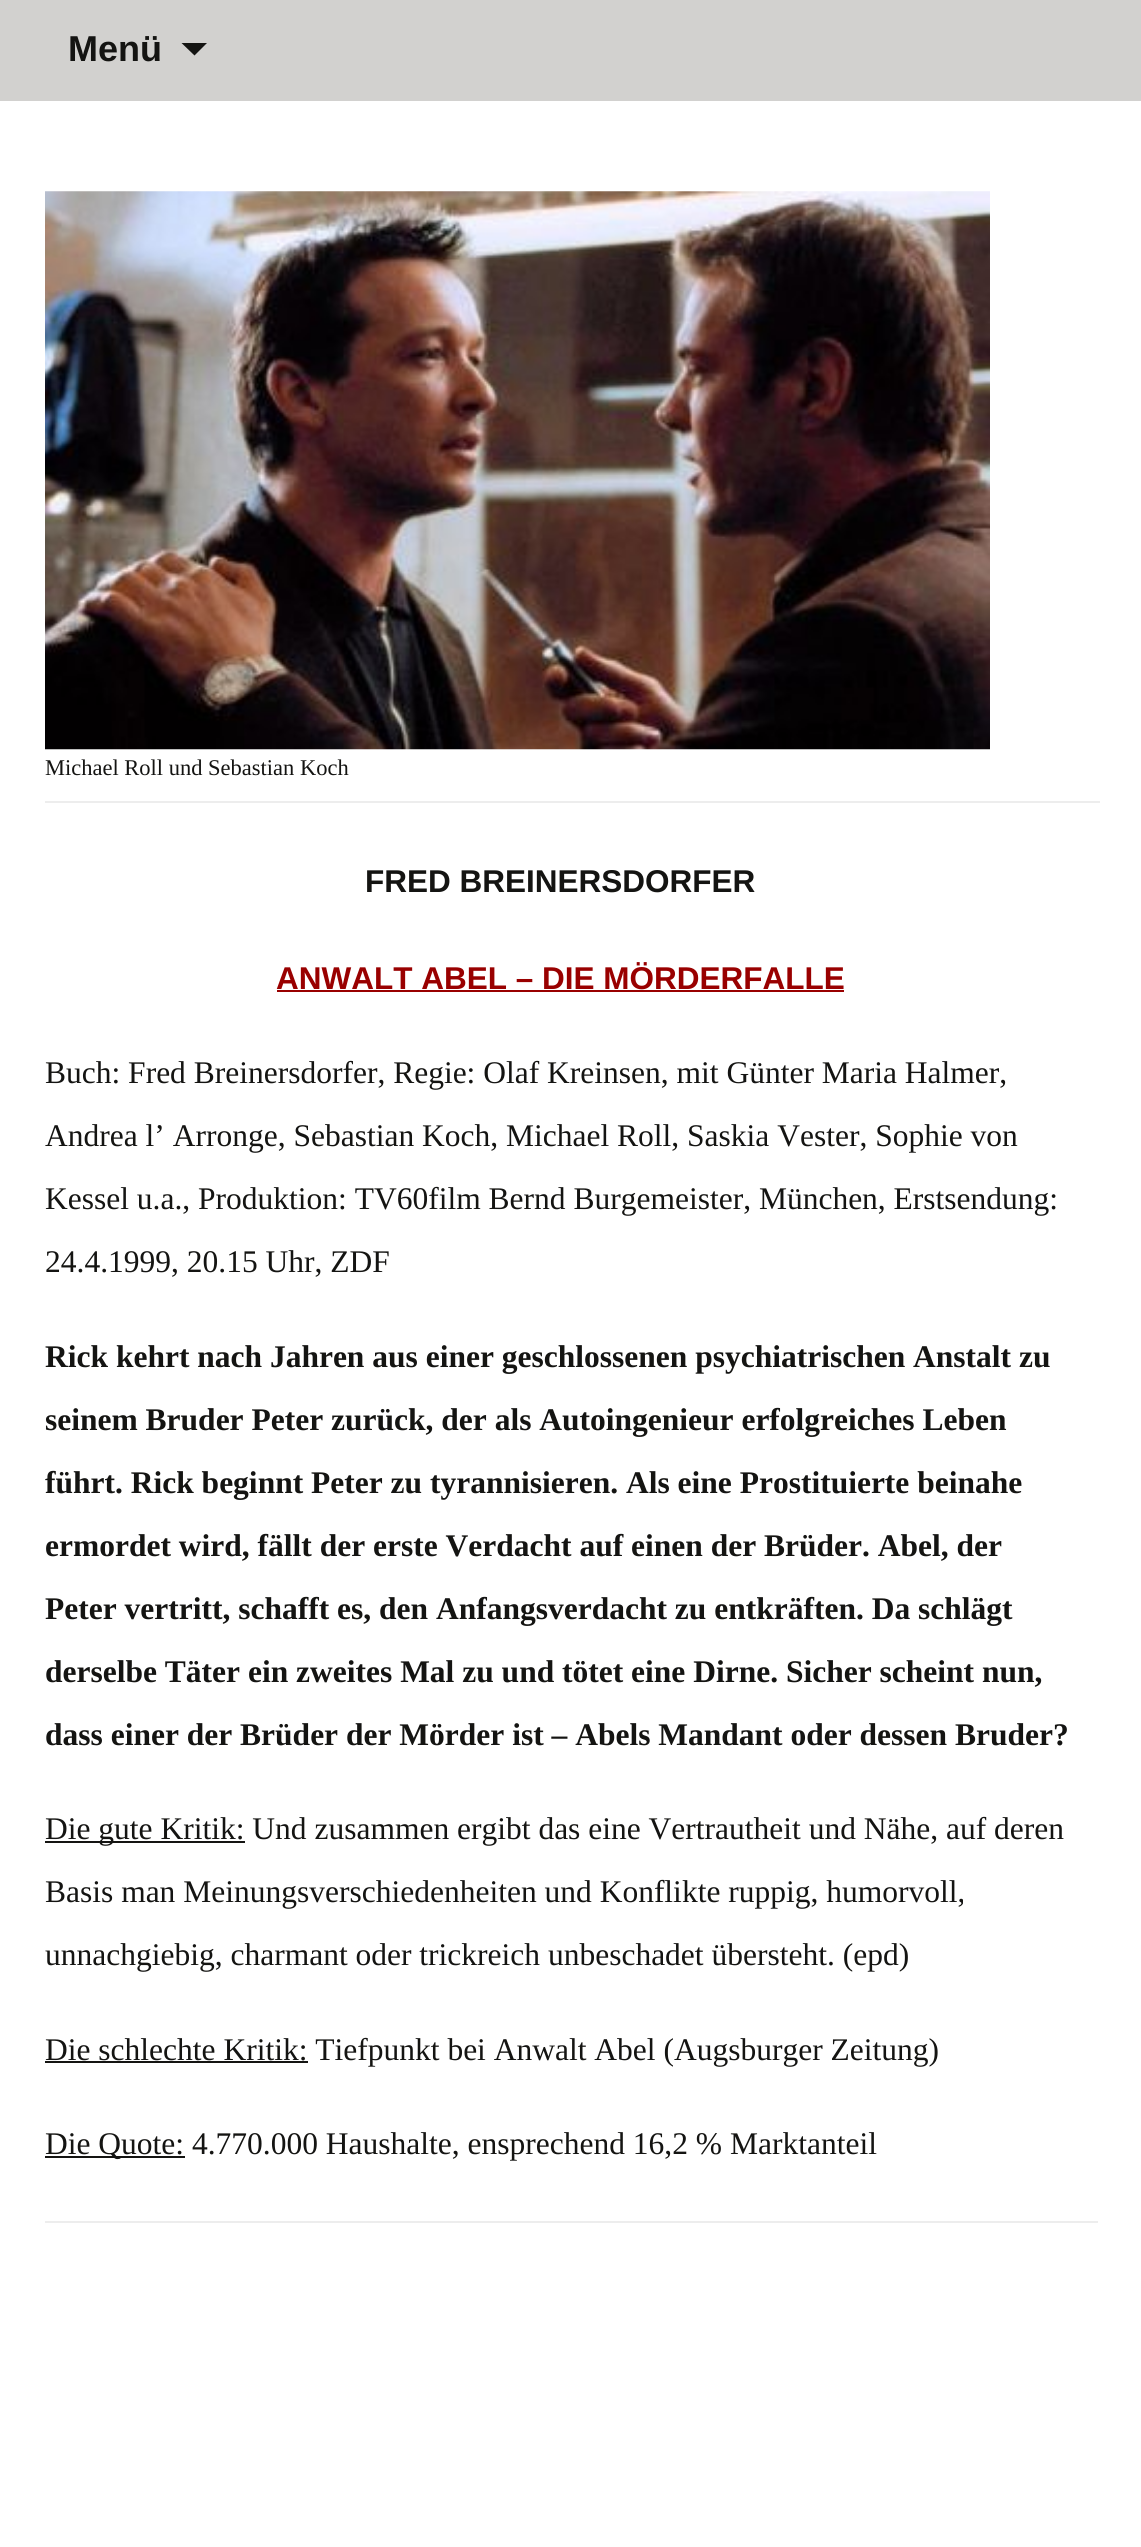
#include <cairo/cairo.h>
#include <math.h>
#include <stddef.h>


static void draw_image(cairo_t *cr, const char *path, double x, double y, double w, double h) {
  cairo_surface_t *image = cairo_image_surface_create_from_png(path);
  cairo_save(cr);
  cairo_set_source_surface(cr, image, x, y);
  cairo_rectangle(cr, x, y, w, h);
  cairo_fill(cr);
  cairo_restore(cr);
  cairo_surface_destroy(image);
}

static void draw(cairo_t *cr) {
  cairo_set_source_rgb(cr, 1, 1, 1);
  cairo_paint(cr);
  cairo_set_source_rgb(cr, 210 / 255.0, 209 / 255.0, 207 / 255.0);
  cairo_rectangle(cr, 0, 0, 1141, 101);
  cairo_fill(cr);
  cairo_set_source_rgb(cr, 20 / 255.0, 20 / 255.0, 18 / 255.0);
  cairo_new_path(cr);
  cairo_move_to(cr, 181.5, 43);
  cairo_line_to(cr, 194.5, 55.5);
  cairo_line_to(cr, 207, 43);
  cairo_close_path(cr);
  cairo_fill(cr);
  draw_image(cr, "images/1.png", 45, 191, 945, 559);
  cairo_set_source_rgb(cr, 237 / 255.0, 237 / 255.0, 237 / 255.0);
  cairo_rectangle(cr, 45, 2221, 1053, 2);
  cairo_fill(cr);
  cairo_rectangle(cr, 45, 801, 1055, 2);
  cairo_fill(cr);
  cairo_set_source_rgb(cr, 153 / 255.0, 0, 0);
  cairo_rectangle(cr, 277, 990, 567, 2);
  cairo_fill(cr);
  cairo_set_source_rgb(cr, 20 / 255.0, 20 / 255.0, 18 / 255.0);
  cairo_rectangle(cr, 45, 1841, 200, 2);
  cairo_fill(cr);
  cairo_rectangle(cr, 45, 2061, 263, 2);
  cairo_fill(cr);
  cairo_rectangle(cr, 45, 2156, 140, 2);
  cairo_fill(cr);
  cairo_select_font_face(cr, "Liberation Sans", CAIRO_FONT_SLANT_NORMAL, CAIRO_FONT_WEIGHT_BOLD);
  cairo_set_font_size(cr, 36);
  cairo_move_to(cr, 68, 61);
  cairo_show_text(cr, "Menü");
  cairo_select_font_face(cr, "Liberation Serif", CAIRO_FONT_SLANT_NORMAL, CAIRO_FONT_WEIGHT_NORMAL);
  cairo_set_font_size(cr, 22.5);
  cairo_move_to(cr, 45, 775);
  cairo_show_text(cr, "Michael Roll und Sebastian Koch");
  cairo_select_font_face(cr, "Liberation Sans", CAIRO_FONT_SLANT_NORMAL, CAIRO_FONT_WEIGHT_BOLD);
  cairo_set_font_size(cr, 31.5);
  cairo_move_to(cr, 365, 892);
  cairo_show_text(cr, "FRED BREINERSDORFER");
  cairo_set_source_rgb(cr, 153 / 255.0, 0, 0);
  cairo_move_to(cr, 276, 989);
  cairo_show_text(cr, "ANWALT ABEL – DIE MÖRDERFALLE");
  cairo_select_font_face(cr, "Liberation Serif", CAIRO_FONT_SLANT_NORMAL, CAIRO_FONT_WEIGHT_NORMAL);
  cairo_set_source_rgb(cr, 20 / 255.0, 20 / 255.0, 18 / 255.0);
  cairo_move_to(cr, 45, 1083);
  cairo_show_text(cr, "Buch: Fred Breinersdorfer, Regie: Olaf Kreinsen, mit Günter Maria Halmer,");
  cairo_move_to(cr, 45, 1146);
  cairo_show_text(cr, "Andrea l’ Arronge, Sebastian Koch, Michael Roll, Saskia Vester, Sophie von");
  cairo_move_to(cr, 45, 1209);
  cairo_show_text(cr, "Kessel u.a., Produktion: TV60film Bernd Burgemeister, München, Erstsendung:");
  cairo_move_to(cr, 45, 1272);
  cairo_show_text(cr, "24.4.1999, 20.15 Uhr, ZDF");
  cairo_select_font_face(cr, "Liberation Serif", CAIRO_FONT_SLANT_NORMAL, CAIRO_FONT_WEIGHT_BOLD);
  cairo_move_to(cr, 45, 1367);
  cairo_show_text(cr, "Rick kehrt nach Jahren aus einer geschlossenen psychiatrischen Anstalt zu");
  cairo_move_to(cr, 45, 1430);
  cairo_show_text(cr, "seinem Bruder Peter zurück, der als Autoingenieur erfolgreiches Leben");
  cairo_move_to(cr, 45, 1493);
  cairo_show_text(cr, "führt. Rick beginnt Peter zu tyrannisieren. Als eine Prostituierte beinahe");
  cairo_move_to(cr, 45, 1556);
  cairo_show_text(cr, "ermordet wird, fällt der erste Verdacht auf einen der Brüder. Abel, der");
  cairo_move_to(cr, 45, 1619);
  cairo_show_text(cr, "Peter vertritt, schafft es, den Anfangsverdacht zu entkräften. Da schlägt");
  cairo_move_to(cr, 45, 1682);
  cairo_show_text(cr, "derselbe Täter ein zweites Mal zu und tötet eine Dirne. Sicher scheint nun,");
  cairo_move_to(cr, 45, 1745);
  cairo_show_text(cr, "dass einer der Brüder der Mörder ist – Abels Mandant oder dessen Bruder?");
  cairo_select_font_face(cr, "Liberation Serif", CAIRO_FONT_SLANT_NORMAL, CAIRO_FONT_WEIGHT_NORMAL);
  cairo_move_to(cr, 45, 1839);
  cairo_show_text(cr, "Die gute Kritik: Und zusammen ergibt das eine Vertrautheit und Nähe, auf deren");
  cairo_move_to(cr, 45, 1902);
  cairo_show_text(cr, "Basis man Meinungsverschiedenheiten und Konflikte ruppig, humorvoll,");
  cairo_move_to(cr, 45, 1965);
  cairo_show_text(cr, "unnachgiebig, charmant oder trickreich unbeschadet übersteht. (epd)");
  cairo_move_to(cr, 45, 2060);
  cairo_show_text(cr, "Die schlechte Kritik: Tiefpunkt bei Anwalt Abel (Augsburger Zeitung)");
  cairo_move_to(cr, 45, 2154);
  cairo_show_text(cr, "Die Quote: 4.770.000 Haushalte, ensprechend 16,2 % Marktanteil");
}

int main(void) {
  cairo_surface_t *surface = cairo_image_surface_create(CAIRO_FORMAT_RGB24, 1141, 2547);
  cairo_t *cr = cairo_create(surface);
  cairo_font_options_t *options = cairo_font_options_create();
  cairo_font_options_set_hint_metrics(options, CAIRO_HINT_METRICS_OFF);
  cairo_font_options_set_hint_style(options, CAIRO_HINT_STYLE_NONE);
  cairo_set_font_options(cr, options);
  cairo_set_miter_limit(cr, 4);
  draw(cr);
  cairo_surface_write_to_png(surface, "out.png");
  cairo_font_options_destroy(options);
  cairo_destroy(cr);
  cairo_surface_destroy(surface);
  return 0;
}
